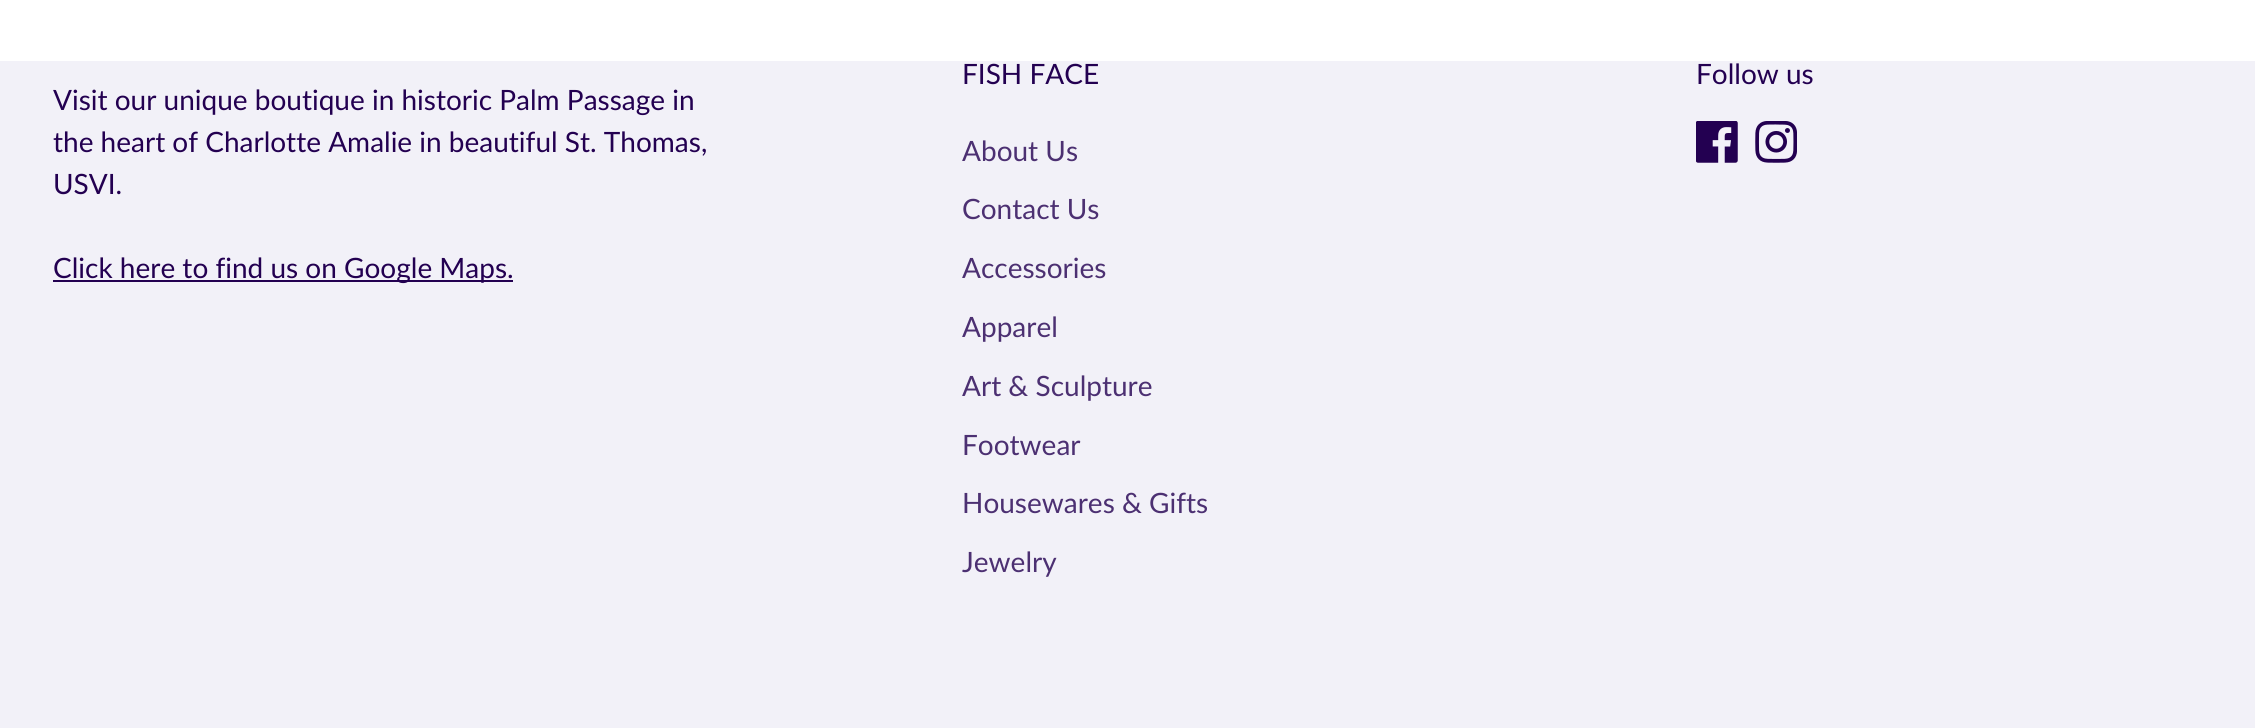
#include <cairo/cairo.h>
#include <math.h>
#include <stddef.h>


static void draw_image(cairo_t *cr, const char *path, double x, double y, double w, double h) {
  cairo_surface_t *image = cairo_image_surface_create_from_png(path);
  cairo_save(cr);
  cairo_set_source_surface(cr, image, x, y);
  cairo_rectangle(cr, x, y, w, h);
  cairo_fill(cr);
  cairo_restore(cr);
  cairo_surface_destroy(image);
}

static void draw(cairo_t *cr) {
  cairo_set_source_rgb(cr, 242 / 255.0, 241 / 255.0, 248 / 255.0);
  cairo_paint(cr);
  cairo_set_source_rgb(cr, 1, 1, 1);
  cairo_rectangle(cr, 0, 0, 2255, 61);
  cairo_fill(cr);
  draw_image(cr, "images/1.png", 1696, 121, 42, 42);
  draw_image(cr, "images/2.png", 1755, 121, 42, 42);
  cairo_set_source_rgb(cr, 35 / 255.0, 0, 81 / 255.0);
  cairo_rectangle(cr, 53, 280, 460, 2);
  cairo_fill(cr);
  cairo_select_font_face(cr, "Lato", CAIRO_FONT_SLANT_NORMAL, CAIRO_FONT_WEIGHT_NORMAL);
  cairo_set_font_size(cr, 28);
  cairo_move_to(cr, 962, 84);
  cairo_show_text(cr, "FISH FACE");
  cairo_set_source_rgb(cr, 76 / 255.0, 48 / 255.0, 114 / 255.0);
  cairo_move_to(cr, 962, 161);
  cairo_show_text(cr, "About Us");
  cairo_move_to(cr, 962, 219);
  cairo_show_text(cr, "Contact Us");
  cairo_move_to(cr, 962, 278);
  cairo_show_text(cr, "Accessories");
  cairo_move_to(cr, 962, 337);
  cairo_show_text(cr, "Apparel");
  cairo_move_to(cr, 962, 396);
  cairo_show_text(cr, "Art & Sculpture");
  cairo_move_to(cr, 962, 455);
  cairo_show_text(cr, "Footwear");
  cairo_move_to(cr, 962, 513);
  cairo_show_text(cr, "Housewares & Gifts");
  cairo_move_to(cr, 962, 572);
  cairo_show_text(cr, "Jewelry");
  cairo_set_source_rgb(cr, 35 / 255.0, 0, 81 / 255.0);
  cairo_move_to(cr, 1696, 84);
  cairo_show_text(cr, "Follow us");
  cairo_move_to(cr, 53, 110);
  cairo_show_text(cr, "Visit our unique boutique in historic Palm Passage in");
  cairo_move_to(cr, 53, 152);
  cairo_show_text(cr, "the heart of Charlotte Amalie in beautiful St. Thomas,");
  cairo_move_to(cr, 53, 194);
  cairo_show_text(cr, "USVI.");
  cairo_move_to(cr, 53, 278);
  cairo_show_text(cr, "Click here to find us on Google Maps.");
}

int main(void) {
  cairo_surface_t *surface = cairo_image_surface_create(CAIRO_FORMAT_RGB24, 2255, 728);
  cairo_t *cr = cairo_create(surface);
  cairo_font_options_t *options = cairo_font_options_create();
  cairo_font_options_set_hint_metrics(options, CAIRO_HINT_METRICS_OFF);
  cairo_font_options_set_hint_style(options, CAIRO_HINT_STYLE_NONE);
  cairo_set_font_options(cr, options);
  cairo_set_miter_limit(cr, 4);
  draw(cr);
  cairo_surface_write_to_png(surface, "out.png");
  cairo_font_options_destroy(options);
  cairo_destroy(cr);
  cairo_surface_destroy(surface);
  return 0;
}
